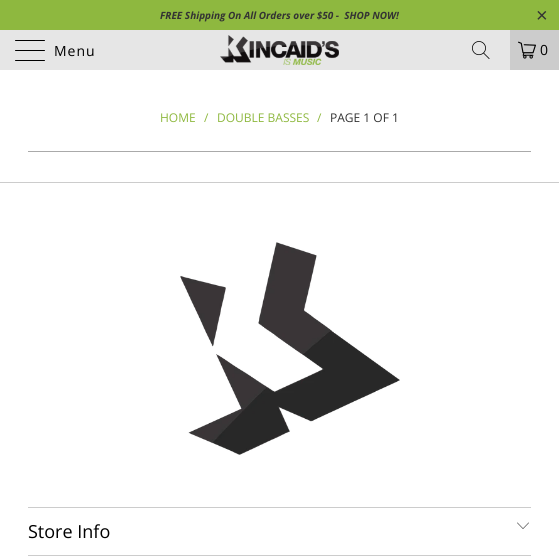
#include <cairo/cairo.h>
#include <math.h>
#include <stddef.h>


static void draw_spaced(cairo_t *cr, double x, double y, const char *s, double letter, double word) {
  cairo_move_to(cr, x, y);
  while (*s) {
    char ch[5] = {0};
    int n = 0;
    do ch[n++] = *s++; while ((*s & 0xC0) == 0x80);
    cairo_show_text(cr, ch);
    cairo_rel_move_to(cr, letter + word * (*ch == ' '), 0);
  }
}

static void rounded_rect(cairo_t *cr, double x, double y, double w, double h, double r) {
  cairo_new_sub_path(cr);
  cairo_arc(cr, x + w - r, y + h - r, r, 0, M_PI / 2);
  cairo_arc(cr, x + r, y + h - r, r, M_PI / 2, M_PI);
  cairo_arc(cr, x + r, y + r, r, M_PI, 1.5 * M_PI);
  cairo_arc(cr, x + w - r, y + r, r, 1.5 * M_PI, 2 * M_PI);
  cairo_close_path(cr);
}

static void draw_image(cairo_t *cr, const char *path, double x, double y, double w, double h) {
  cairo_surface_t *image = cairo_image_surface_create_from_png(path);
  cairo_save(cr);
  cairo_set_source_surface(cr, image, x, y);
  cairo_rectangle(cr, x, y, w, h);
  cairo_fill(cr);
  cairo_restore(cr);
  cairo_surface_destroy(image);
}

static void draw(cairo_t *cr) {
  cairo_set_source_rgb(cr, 1, 1, 1);
  cairo_paint(cr);
  cairo_set_source_rgb(cr, 142 / 255.0, 184 / 255.0, 63 / 255.0);
  cairo_rectangle(cr, 0, 0, 559, 30);
  cairo_fill(cr);
  cairo_set_source_rgb(cr, 230 / 255.0, 230 / 255.0, 230 / 255.0);
  cairo_rectangle(cr, 0, 30, 510, 40);
  cairo_fill(cr);
  cairo_set_source_rgb(cr, 0, 0, 0);
  rounded_rect(cr, 15, 40, 30, 1, 0.5);
  cairo_fill(cr);
  rounded_rect(cr, 15, 50, 30, 1, 0.5);
  cairo_fill(cr);
  rounded_rect(cr, 15, 60, 30, 1, 0.5);
  cairo_fill(cr);
  draw_image(cr, "images/1.png", 220, 35, 119, 30);
  draw_image(cr, "images/2.png", 472, 41, 18, 18);
  cairo_set_source_rgb(cr, 204 / 255.0, 204 / 255.0, 204 / 255.0);
  cairo_rectangle(cr, 510, 30, 49, 40);
  cairo_fill(cr);
  draw_image(cr, "images/3.png", 518, 41, 18, 18);
  cairo_set_source_rgb(cr, 170 / 255.0, 170 / 255.0, 170 / 255.0);
  cairo_rectangle(cr, 28, 151, 503, 1);
  cairo_fill(cr);
  cairo_set_source_rgb(cr, 204 / 255.0, 204 / 255.0, 204 / 255.0);
  cairo_rectangle(cr, 0, 182, 559, 1);
  cairo_fill(cr);
  draw_image(cr, "images/4.png", 180, 242, 220, 213);
  cairo_rectangle(cr, 28, 507, 503, 1);
  cairo_fill(cr);
  draw_image(cr, "images/5.png", 517, 522, 12, 7);
  cairo_rectangle(cr, 28, 555, 503, 1);
  cairo_fill(cr);
  cairo_select_font_face(cr, "Open Sans", CAIRO_FONT_SLANT_ITALIC, CAIRO_FONT_WEIGHT_BOLD);
  cairo_set_font_size(cr, 10);
  cairo_set_source_rgb(cr, 51 / 255.0, 51 / 255.0, 51 / 255.0);
  cairo_move_to(cr, 160, 19);
  cairo_show_text(cr, "FREE Shipping On All Orders over $50 -  SHOP NOW!");
  cairo_select_font_face(cr, "Liberation Sans", CAIRO_FONT_SLANT_NORMAL, CAIRO_FONT_WEIGHT_NORMAL);
  cairo_set_font_size(cr, 20);
  cairo_move_to(cr, 536, 22);
  cairo_show_text(cr, "×");
  cairo_select_font_face(cr, "Open Sans", CAIRO_FONT_SLANT_NORMAL, CAIRO_FONT_WEIGHT_NORMAL);
  cairo_set_font_size(cr, 14);
  cairo_set_source_rgb(cr, 0, 0, 0);
  draw_spaced(cr, 54, 56, "Menu", 1, 0);
  draw_spaced(cr, 540, 55, "0", 1, 0);
  cairo_set_font_size(cr, 12);
  cairo_set_source_rgb(cr, 142 / 255.0, 184 / 255.0, 63 / 255.0);
  cairo_move_to(cr, 160, 122);
  cairo_show_text(cr, "HOME");
  cairo_move_to(cr, 204, 122);
  cairo_show_text(cr, "/");
  cairo_move_to(cr, 217, 122);
  cairo_show_text(cr, "DOUBLE BASSES");
  cairo_move_to(cr, 317, 122);
  cairo_show_text(cr, "/");
  cairo_set_source_rgb(cr, 51 / 255.0, 51 / 255.0, 51 / 255.0);
  cairo_move_to(cr, 330, 122);
  cairo_show_text(cr, "PAGE 1 OF 1");
  cairo_set_font_size(cr, 18);
  cairo_set_source_rgb(cr, 0, 0, 0);
  cairo_move_to(cr, 28, 538);
  cairo_show_text(cr, "Store Info");
}

int main(void) {
  cairo_surface_t *surface = cairo_image_surface_create(CAIRO_FORMAT_RGB24, 559, 559);
  cairo_t *cr = cairo_create(surface);
  cairo_font_options_t *options = cairo_font_options_create();
  cairo_font_options_set_hint_metrics(options, CAIRO_HINT_METRICS_OFF);
  cairo_font_options_set_hint_style(options, CAIRO_HINT_STYLE_NONE);
  cairo_set_font_options(cr, options);
  cairo_set_miter_limit(cr, 4);
  draw(cr);
  cairo_surface_write_to_png(surface, "out.png");
  cairo_font_options_destroy(options);
  cairo_destroy(cr);
  cairo_surface_destroy(surface);
  return 0;
}
